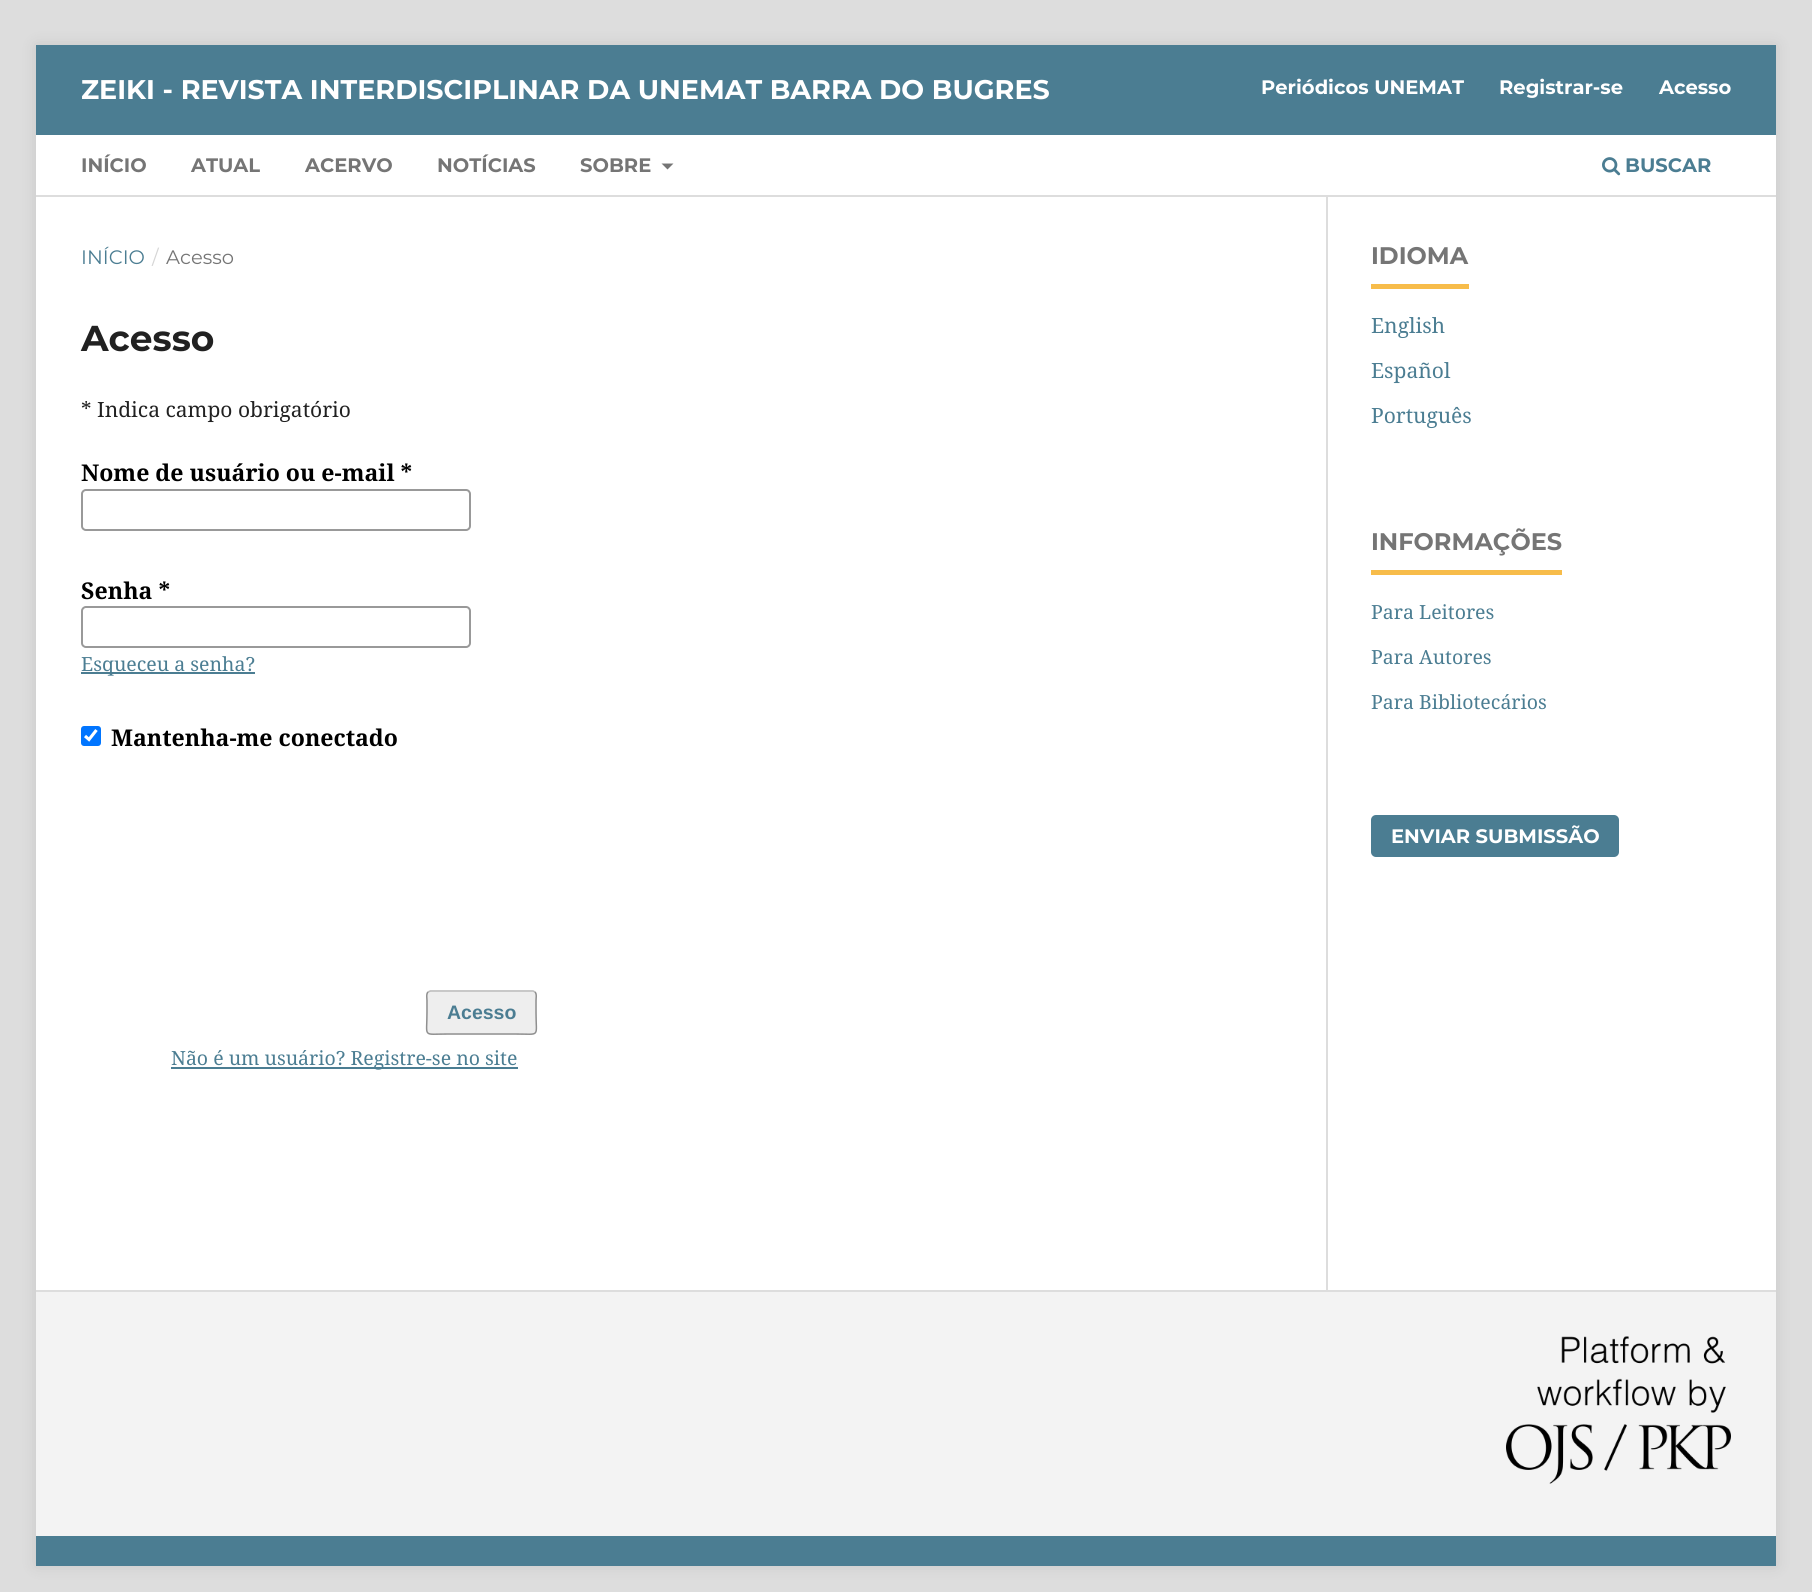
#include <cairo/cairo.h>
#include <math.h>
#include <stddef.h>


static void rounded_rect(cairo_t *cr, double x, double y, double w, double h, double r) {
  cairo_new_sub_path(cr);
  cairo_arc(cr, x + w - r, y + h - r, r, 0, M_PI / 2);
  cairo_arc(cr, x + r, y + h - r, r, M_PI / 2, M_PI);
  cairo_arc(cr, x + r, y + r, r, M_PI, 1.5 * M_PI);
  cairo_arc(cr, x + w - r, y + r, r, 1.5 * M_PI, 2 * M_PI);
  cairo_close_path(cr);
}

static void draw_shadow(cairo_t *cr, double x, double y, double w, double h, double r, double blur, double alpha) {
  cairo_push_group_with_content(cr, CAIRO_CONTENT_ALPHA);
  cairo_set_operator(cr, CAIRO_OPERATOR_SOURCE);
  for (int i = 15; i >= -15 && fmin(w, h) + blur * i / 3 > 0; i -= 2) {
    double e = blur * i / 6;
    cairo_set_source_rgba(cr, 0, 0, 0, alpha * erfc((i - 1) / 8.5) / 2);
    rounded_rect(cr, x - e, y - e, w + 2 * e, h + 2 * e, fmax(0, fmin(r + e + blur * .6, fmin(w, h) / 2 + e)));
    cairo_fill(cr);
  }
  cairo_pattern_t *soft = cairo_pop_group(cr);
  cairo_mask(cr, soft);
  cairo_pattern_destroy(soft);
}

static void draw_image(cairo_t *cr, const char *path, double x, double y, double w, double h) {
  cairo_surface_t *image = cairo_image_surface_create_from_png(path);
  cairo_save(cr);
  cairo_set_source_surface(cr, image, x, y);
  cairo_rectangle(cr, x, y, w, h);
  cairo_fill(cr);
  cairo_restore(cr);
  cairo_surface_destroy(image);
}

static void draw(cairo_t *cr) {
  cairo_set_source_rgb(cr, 221 / 255.0, 221 / 255.0, 221 / 255.0);
  cairo_paint(cr);
  cairo_set_source_rgb(cr, 0, 0, 0);
  draw_shadow(cr, 36, 45, 1740, 1521, 0, 7.5, 0.1);
  cairo_set_source_rgb(cr, 1, 1, 1);
  cairo_rectangle(cr, 36, 197, 1740, 1093);
  cairo_fill(cr);
  cairo_set_source_rgb(cr, 75 / 255.0, 125 / 255.0, 146 / 255.0);
  cairo_rectangle(cr, 36, 45, 1740, 90);
  cairo_fill(cr);
  cairo_set_source_rgb(cr, 221 / 255.0, 221 / 255.0, 221 / 255.0);
  cairo_rectangle(cr, 36, 195, 1740, 2);
  cairo_fill(cr);
  cairo_set_source_rgb(cr, 1, 1, 1);
  cairo_rectangle(cr, 36, 135, 1740, 60);
  cairo_fill(cr);
  cairo_set_source_rgb(cr, 117 / 255.0, 117 / 255.0, 117 / 255.0);
  cairo_new_path(cr);
  cairo_move_to(cr, 661.5, 163.5);
  cairo_line_to(cr, 673.5, 163.5);
  cairo_line_to(cr, 667.5, 169.5);
  cairo_close_path(cr);
  cairo_fill(cr);
  draw_image(cr, "images/1.png", 1602, 157, 19, 19);
  rounded_rect(cr, 82, 490, 388, 40, 4);
  cairo_set_source_rgb(cr, 153 / 255.0, 153 / 255.0, 153 / 255.0);
  cairo_stroke(cr);
  rounded_rect(cr, 82, 607, 388, 40, 4);
  cairo_stroke(cr);
  cairo_set_source_rgb(cr, 75 / 255.0, 125 / 255.0, 146 / 255.0);
  cairo_rectangle(cr, 81, 672, 174, 2);
  cairo_fill(cr);
  cairo_set_source_rgb(cr, 0, 117 / 255.0, 1);
  rounded_rect(cr, 81, 726, 20, 20, 3);
  cairo_fill(cr);
  cairo_new_path(cr);
  cairo_move_to(cr, 85, 736);
  cairo_line_to(cr, 89, 739.5);
  cairo_line_to(cr, 96.5, 730);
  cairo_set_source_rgb(cr, 1, 1, 1);
  cairo_set_line_width(cr, 3.1);
  cairo_stroke(cr);
  cairo_set_source_rgb(cr, 238 / 255.0, 238 / 255.0, 238 / 255.0);
  rounded_rect(cr, 426, 990, 111, 45, 5);
  cairo_fill(cr);
  cairo_new_path(cr);
  cairo_move_to(cr, 428, 992);
  cairo_line_to(cr, 430.5, 991);
  cairo_line_to(cr, 533, 991);
  cairo_line_to(cr, 535, 992);
  cairo_set_source_rgb(cr, 187 / 255.0, 187 / 255.0, 187 / 255.0);
  cairo_set_line_width(cr, 1.5);
  cairo_stroke(cr);
  cairo_new_path(cr);
  cairo_move_to(cr, 535, 992);
  cairo_curve_to(cr, 537, 994, 536, 998.5, 536, 1000.5);
  cairo_line_to(cr, 536, 1012.5);
  cairo_curve_to(cr, 536, 1038, 541, 1034, 515.5, 1034);
  cairo_line_to(cr, 447.5, 1034);
  cairo_curve_to(cr, 422, 1034, 427, 1038, 427, 1012.5);
  cairo_line_to(cr, 427, 1000.5);
  cairo_curve_to(cr, 427, 998.5, 426, 994, 428, 992);
  cairo_set_source_rgba(cr, 0, 0, 0, 0.4);
  cairo_stroke(cr);
  cairo_set_source_rgb(cr, 75 / 255.0, 125 / 255.0, 146 / 255.0);
  cairo_rectangle(cr, 171, 1067, 347, 2);
  cairo_fill(cr);
  cairo_set_source_rgb(cr, 221 / 255.0, 221 / 255.0, 221 / 255.0);
  cairo_rectangle(cr, 1326, 197, 2, 1093);
  cairo_fill(cr);
  cairo_set_source_rgb(cr, 247 / 255.0, 188 / 255.0, 74 / 255.0);
  cairo_rectangle(cr, 1371, 284, 98, 5);
  cairo_fill(cr);
  cairo_rectangle(cr, 1371, 570, 191, 5);
  cairo_fill(cr);
  cairo_set_source_rgb(cr, 75 / 255.0, 125 / 255.0, 146 / 255.0);
  rounded_rect(cr, 1371, 815, 248, 42, 5);
  cairo_fill(cr);
  cairo_set_source_rgb(cr, 243 / 255.0, 243 / 255.0, 243 / 255.0);
  cairo_rectangle(cr, 36, 1292, 1740, 244);
  cairo_fill(cr);
  cairo_set_source_rgb(cr, 221 / 255.0, 221 / 255.0, 221 / 255.0);
  cairo_rectangle(cr, 36, 1290, 1740, 2);
  cairo_fill(cr);
  cairo_set_source_rgb(cr, 75 / 255.0, 125 / 255.0, 146 / 255.0);
  cairo_rectangle(cr, 36, 1536, 1740, 30);
  cairo_fill(cr);
  draw_image(cr, "images/2.png", 1506, 1336, 225, 148);
  cairo_select_font_face(cr, "Montserrat", CAIRO_FONT_SLANT_NORMAL, CAIRO_FONT_WEIGHT_BOLD);
  cairo_set_font_size(cr, 19.5);
  cairo_set_source_rgb(cr, 1, 1, 1);
  cairo_move_to(cr, 1261, 94);
  cairo_show_text(cr, "Periódicos UNEMAT");
  cairo_move_to(cr, 1499, 94);
  cairo_show_text(cr, "Registrar-se");
  cairo_move_to(cr, 1659, 94);
  cairo_show_text(cr, "Acesso");
  cairo_set_source_rgb(cr, 117 / 255.0, 117 / 255.0, 117 / 255.0);
  cairo_move_to(cr, 81, 172);
  cairo_show_text(cr, "INÍCIO");
  cairo_move_to(cr, 191, 172);
  cairo_show_text(cr, "ATUAL");
  cairo_move_to(cr, 305, 172);
  cairo_show_text(cr, "ACERVO");
  cairo_move_to(cr, 437, 172);
  cairo_show_text(cr, "NOTÍCIAS");
  cairo_move_to(cr, 580, 172);
  cairo_show_text(cr, "SOBRE");
  cairo_set_source_rgb(cr, 75 / 255.0, 125 / 255.0, 146 / 255.0);
  cairo_move_to(cr, 1625, 172);
  cairo_show_text(cr, "BUSCAR");
  cairo_set_font_size(cr, 27);
  cairo_set_source_rgb(cr, 1, 1, 1);
  cairo_move_to(cr, 81, 99);
  cairo_show_text(cr, "ZEIKI - REVISTA INTERDISCIPLINAR DA UNEMAT BARRA DO BUGRES");
  cairo_select_font_face(cr, "Montserrat", CAIRO_FONT_SLANT_NORMAL, CAIRO_FONT_WEIGHT_NORMAL);
  cairo_set_font_size(cr, 19.5);
  cairo_set_source_rgb(cr, 75 / 255.0, 125 / 255.0, 146 / 255.0);
  cairo_move_to(cr, 81, 264);
  cairo_show_text(cr, "INÍCIO");
  cairo_set_source_rgb(cr, 214 / 255.0, 214 / 255.0, 214 / 255.0);
  cairo_move_to(cr, 152, 264);
  cairo_show_text(cr, "/");
  cairo_set_source_rgb(cr, 117 / 255.0, 117 / 255.0, 117 / 255.0);
  cairo_move_to(cr, 166, 264);
  cairo_show_text(cr, "Acesso");
  cairo_select_font_face(cr, "Montserrat", CAIRO_FONT_SLANT_NORMAL, CAIRO_FONT_WEIGHT_BOLD);
  cairo_set_font_size(cr, 36);
  cairo_set_source_rgb(cr, 33 / 255.0, 33 / 255.0, 33 / 255.0);
  cairo_move_to(cr, 81, 351);
  cairo_show_text(cr, "Acesso");
  cairo_select_font_face(cr, "Noto Serif", CAIRO_FONT_SLANT_NORMAL, CAIRO_FONT_WEIGHT_NORMAL);
  cairo_set_font_size(cr, 21);
  cairo_move_to(cr, 81, 417);
  cairo_show_text(cr, "* Indica campo obrigatório");
  cairo_select_font_face(cr, "Noto Serif", CAIRO_FONT_SLANT_NORMAL, CAIRO_FONT_WEIGHT_BOLD);
  cairo_set_font_size(cr, 23.1);
  cairo_set_source_rgb(cr, 0, 0, 0);
  cairo_move_to(cr, 81, 481);
  cairo_show_text(cr, "Nome de usuário ou e-mail *");
  cairo_move_to(cr, 81, 599);
  cairo_show_text(cr, "Senha *");
  cairo_select_font_face(cr, "Noto Serif", CAIRO_FONT_SLANT_NORMAL, CAIRO_FONT_WEIGHT_NORMAL);
  cairo_set_font_size(cr, 19.5);
  cairo_set_source_rgb(cr, 75 / 255.0, 125 / 255.0, 146 / 255.0);
  cairo_move_to(cr, 81, 671);
  cairo_show_text(cr, "Esqueceu a senha?");
  cairo_select_font_face(cr, "Noto Serif", CAIRO_FONT_SLANT_NORMAL, CAIRO_FONT_WEIGHT_BOLD);
  cairo_set_font_size(cr, 23.1);
  cairo_set_source_rgb(cr, 0, 0, 0);
  cairo_move_to(cr, 111, 746);
  cairo_show_text(cr, "Mantenha-me conectado");
  cairo_select_font_face(cr, "Liberation Sans", CAIRO_FONT_SLANT_NORMAL, CAIRO_FONT_WEIGHT_BOLD);
  cairo_set_font_size(cr, 19.5);
  cairo_set_source_rgb(cr, 75 / 255.0, 125 / 255.0, 146 / 255.0);
  cairo_move_to(cr, 447, 1019);
  cairo_show_text(cr, "Acesso");
  cairo_select_font_face(cr, "Noto Serif", CAIRO_FONT_SLANT_NORMAL, CAIRO_FONT_WEIGHT_NORMAL);
  cairo_move_to(cr, 171, 1065);
  cairo_show_text(cr, "Não é um usuário? Registre-se no site");
  cairo_select_font_face(cr, "Montserrat", CAIRO_FONT_SLANT_NORMAL, CAIRO_FONT_WEIGHT_BOLD);
  cairo_set_font_size(cr, 24);
  cairo_set_source_rgb(cr, 117 / 255.0, 117 / 255.0, 117 / 255.0);
  cairo_move_to(cr, 1371, 264);
  cairo_show_text(cr, "IDIOMA");
  cairo_select_font_face(cr, "Noto Serif", CAIRO_FONT_SLANT_NORMAL, CAIRO_FONT_WEIGHT_NORMAL);
  cairo_set_font_size(cr, 21);
  cairo_set_source_rgb(cr, 75 / 255.0, 125 / 255.0, 146 / 255.0);
  cairo_move_to(cr, 1371, 333);
  cairo_show_text(cr, "English");
  cairo_move_to(cr, 1371, 378);
  cairo_show_text(cr, "Español");
  cairo_move_to(cr, 1371, 423);
  cairo_show_text(cr, "Português");
  cairo_select_font_face(cr, "Montserrat", CAIRO_FONT_SLANT_NORMAL, CAIRO_FONT_WEIGHT_BOLD);
  cairo_set_font_size(cr, 24);
  cairo_set_source_rgb(cr, 117 / 255.0, 117 / 255.0, 117 / 255.0);
  cairo_move_to(cr, 1371, 550);
  cairo_show_text(cr, "INFORMAÇÕES");
  cairo_select_font_face(cr, "Noto Serif", CAIRO_FONT_SLANT_NORMAL, CAIRO_FONT_WEIGHT_NORMAL);
  cairo_set_font_size(cr, 19.5);
  cairo_set_source_rgb(cr, 75 / 255.0, 125 / 255.0, 146 / 255.0);
  cairo_move_to(cr, 1371, 619);
  cairo_show_text(cr, "Para Leitores");
  cairo_move_to(cr, 1371, 664);
  cairo_show_text(cr, "Para Autores");
  cairo_move_to(cr, 1371, 709);
  cairo_show_text(cr, "Para Bibliotecários");
  cairo_select_font_face(cr, "Montserrat", CAIRO_FONT_SLANT_NORMAL, CAIRO_FONT_WEIGHT_BOLD);
  cairo_set_source_rgb(cr, 1, 1, 1);
  cairo_move_to(cr, 1391, 843);
  cairo_show_text(cr, "ENVIAR SUBMISSÃO");
}

int main(void) {
  cairo_surface_t *surface = cairo_image_surface_create(CAIRO_FORMAT_RGB24, 1812, 1592);
  cairo_t *cr = cairo_create(surface);
  cairo_font_options_t *options = cairo_font_options_create();
  cairo_font_options_set_hint_metrics(options, CAIRO_HINT_METRICS_OFF);
  cairo_font_options_set_hint_style(options, CAIRO_HINT_STYLE_NONE);
  cairo_set_font_options(cr, options);
  cairo_set_miter_limit(cr, 4);
  draw(cr);
  cairo_surface_write_to_png(surface, "out.png");
  cairo_font_options_destroy(options);
  cairo_destroy(cr);
  cairo_surface_destroy(surface);
  return 0;
}
